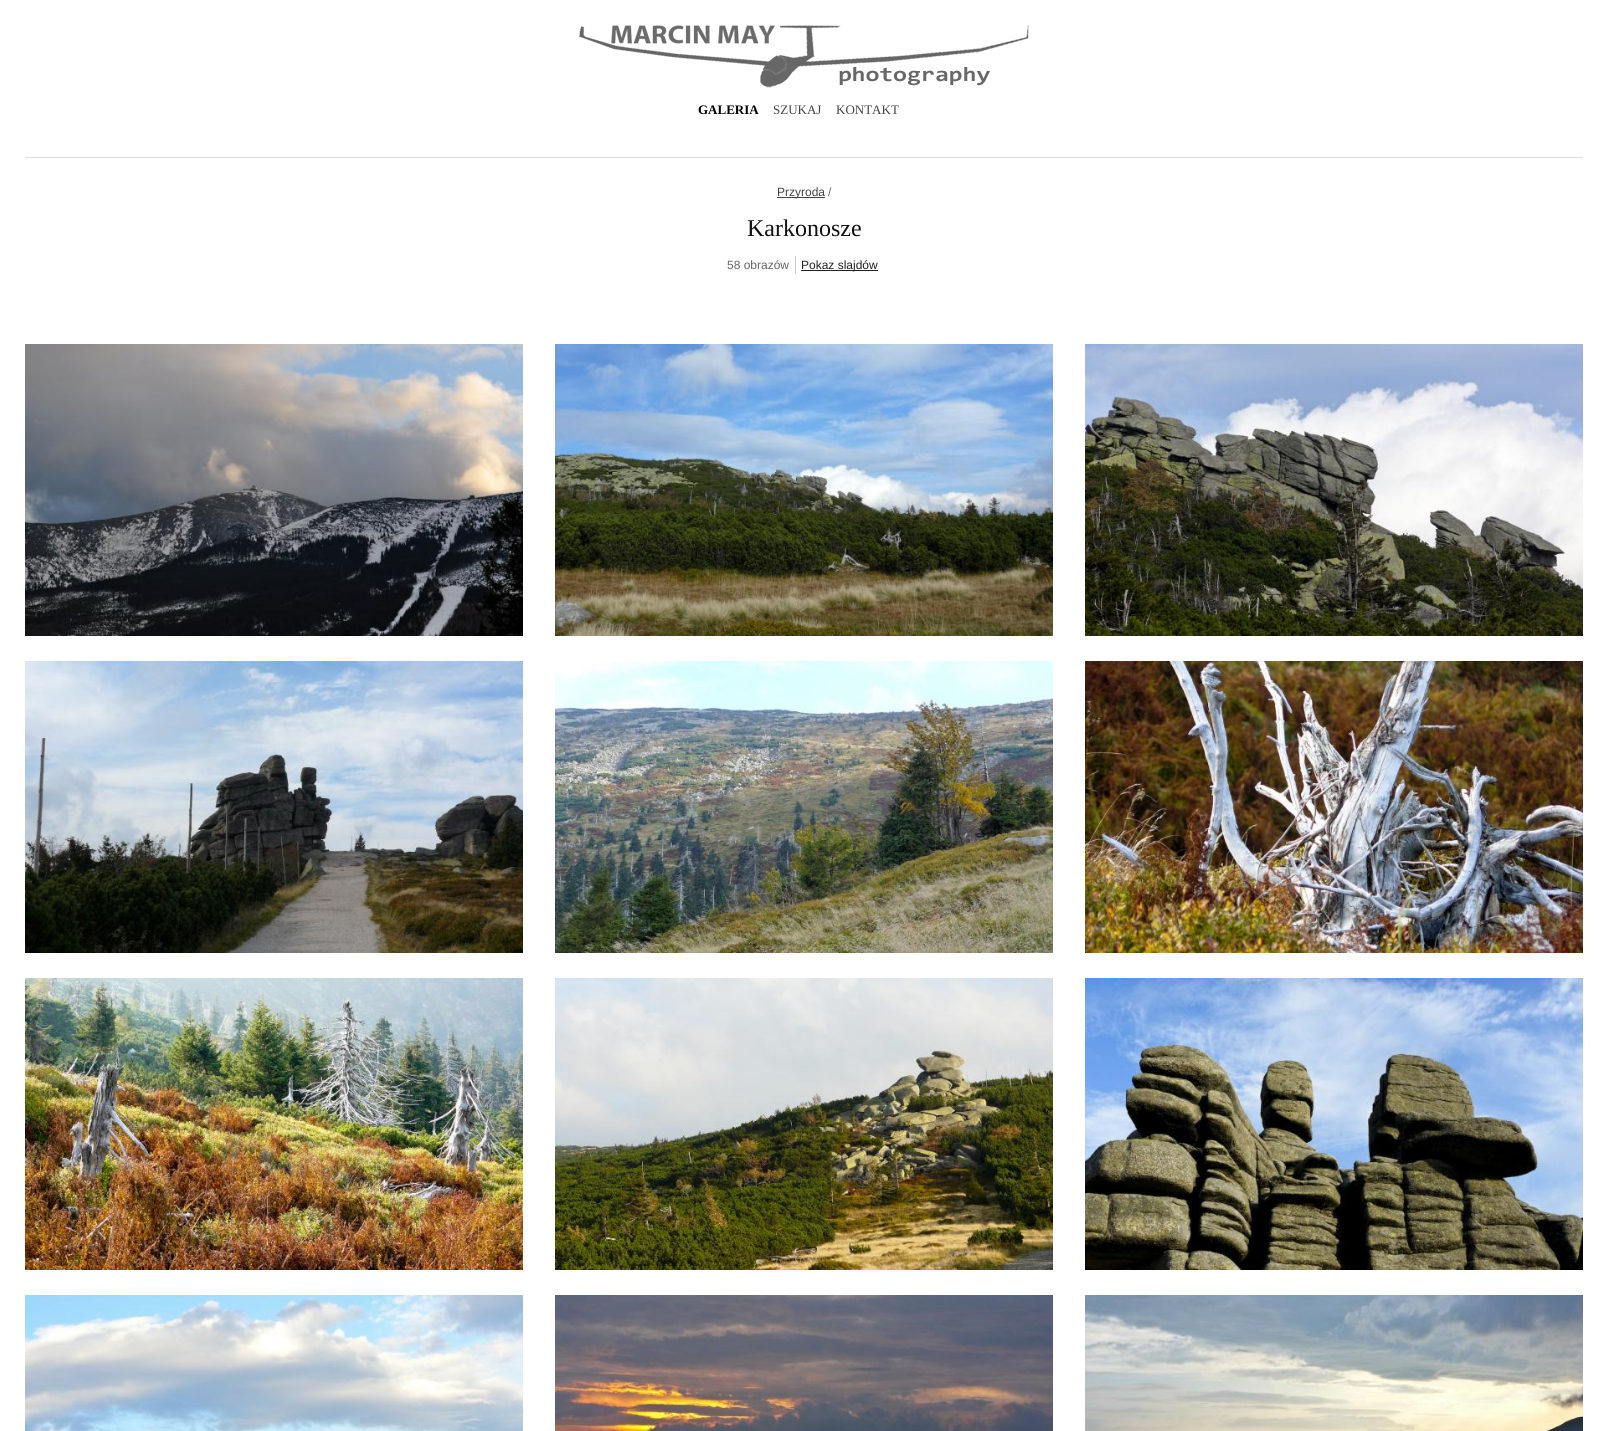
#include <cairo/cairo.h>
#include <math.h>
#include <stddef.h>


static void draw_image(cairo_t *cr, const char *path, double x, double y, double w, double h) {
  cairo_surface_t *image = cairo_image_surface_create_from_png(path);
  cairo_save(cr);
  cairo_set_source_surface(cr, image, x, y);
  cairo_rectangle(cr, x, y, w, h);
  cairo_fill(cr);
  cairo_restore(cr);
  cairo_surface_destroy(image);
}

static void draw(cairo_t *cr) {
  cairo_set_source_rgb(cr, 1, 1, 1);
  cairo_paint(cr);
  cairo_set_source_rgb(cr, 221 / 255.0, 221 / 255.0, 221 / 255.0);
  cairo_rectangle(cr, 25, 157, 1558, 1);
  cairo_fill(cr);
  draw_image(cr, "images/1.png", 579, 25, 450, 63);
  cairo_set_source_rgb(cr, 68 / 255.0, 68 / 255.0, 68 / 255.0);
  cairo_rectangle(cr, 777, 197, 48, 1);
  cairo_fill(cr);
  cairo_set_source_rgb(cr, 204 / 255.0, 204 / 255.0, 204 / 255.0);
  cairo_rectangle(cr, 795, 256, 1, 18);
  cairo_fill(cr);
  cairo_set_source_rgb(cr, 34 / 255.0, 34 / 255.0, 34 / 255.0);
  cairo_rectangle(cr, 801, 270, 77, 1);
  cairo_fill(cr);
  draw_image(cr, "images/2.png", 25, 344, 498, 292);
  draw_image(cr, "images/3.png", 555, 344, 498, 292);
  draw_image(cr, "images/4.png", 1085, 344, 498, 292);
  draw_image(cr, "images/5.png", 25, 661, 498, 292);
  draw_image(cr, "images/6.png", 555, 661, 498, 292);
  draw_image(cr, "images/7.png", 1085, 661, 498, 292);
  draw_image(cr, "images/8.png", 25, 978, 498, 292);
  draw_image(cr, "images/9.png", 555, 978, 498, 292);
  draw_image(cr, "images/10.png", 1085, 978, 498, 292);
  draw_image(cr, "images/11.png", 25, 1295, 498, 136);
  draw_image(cr, "images/12.png", 555, 1295, 498, 136);
  draw_image(cr, "images/13.png", 1085, 1295, 498, 136);
  cairo_select_font_face(cr, "Liberation Serif", CAIRO_FONT_SLANT_NORMAL, CAIRO_FONT_WEIGHT_BOLD);
  cairo_set_font_size(cr, 13);
  cairo_set_source_rgb(cr, 0, 0, 0);
  cairo_move_to(cr, 698, 114);
  cairo_show_text(cr, "GALERIA");
  cairo_select_font_face(cr, "Liberation Serif", CAIRO_FONT_SLANT_NORMAL, CAIRO_FONT_WEIGHT_NORMAL);
  cairo_set_source_rgb(cr, 68 / 255.0, 68 / 255.0, 68 / 255.0);
  cairo_move_to(cr, 773, 114);
  cairo_show_text(cr, "SZUKAJ");
  cairo_move_to(cr, 836, 114);
  cairo_show_text(cr, "KONTAKT");
  cairo_select_font_face(cr, "Liberation Sans", CAIRO_FONT_SLANT_NORMAL, CAIRO_FONT_WEIGHT_NORMAL);
  cairo_set_font_size(cr, 12);
  cairo_move_to(cr, 777, 196);
  cairo_show_text(cr, "Przyroda");
  cairo_set_source_rgb(cr, 102 / 255.0, 102 / 255.0, 102 / 255.0);
  cairo_move_to(cr, 828, 196);
  cairo_show_text(cr, "/");
  cairo_select_font_face(cr, "Liberation Serif", CAIRO_FONT_SLANT_NORMAL, CAIRO_FONT_WEIGHT_NORMAL);
  cairo_set_font_size(cr, 24);
  cairo_set_source_rgb(cr, 17 / 255.0, 17 / 255.0, 17 / 255.0);
  cairo_move_to(cr, 747, 236);
  cairo_show_text(cr, "Karkonosze");
  cairo_select_font_face(cr, "Liberation Sans", CAIRO_FONT_SLANT_NORMAL, CAIRO_FONT_WEIGHT_NORMAL);
  cairo_set_font_size(cr, 12);
  cairo_set_source_rgb(cr, 102 / 255.0, 102 / 255.0, 102 / 255.0);
  cairo_move_to(cr, 727, 269);
  cairo_show_text(cr, "58 obrazów");
  cairo_set_source_rgb(cr, 34 / 255.0, 34 / 255.0, 34 / 255.0);
  cairo_move_to(cr, 801, 269);
  cairo_show_text(cr, "Pokaz slajdów");
}

int main(void) {
  cairo_surface_t *surface = cairo_image_surface_create(CAIRO_FORMAT_RGB24, 1608, 1431);
  cairo_t *cr = cairo_create(surface);
  cairo_font_options_t *options = cairo_font_options_create();
  cairo_font_options_set_hint_metrics(options, CAIRO_HINT_METRICS_OFF);
  cairo_font_options_set_hint_style(options, CAIRO_HINT_STYLE_NONE);
  cairo_set_font_options(cr, options);
  cairo_set_miter_limit(cr, 4);
  draw(cr);
  cairo_surface_write_to_png(surface, "out.png");
  cairo_font_options_destroy(options);
  cairo_destroy(cr);
  cairo_surface_destroy(surface);
  return 0;
}
